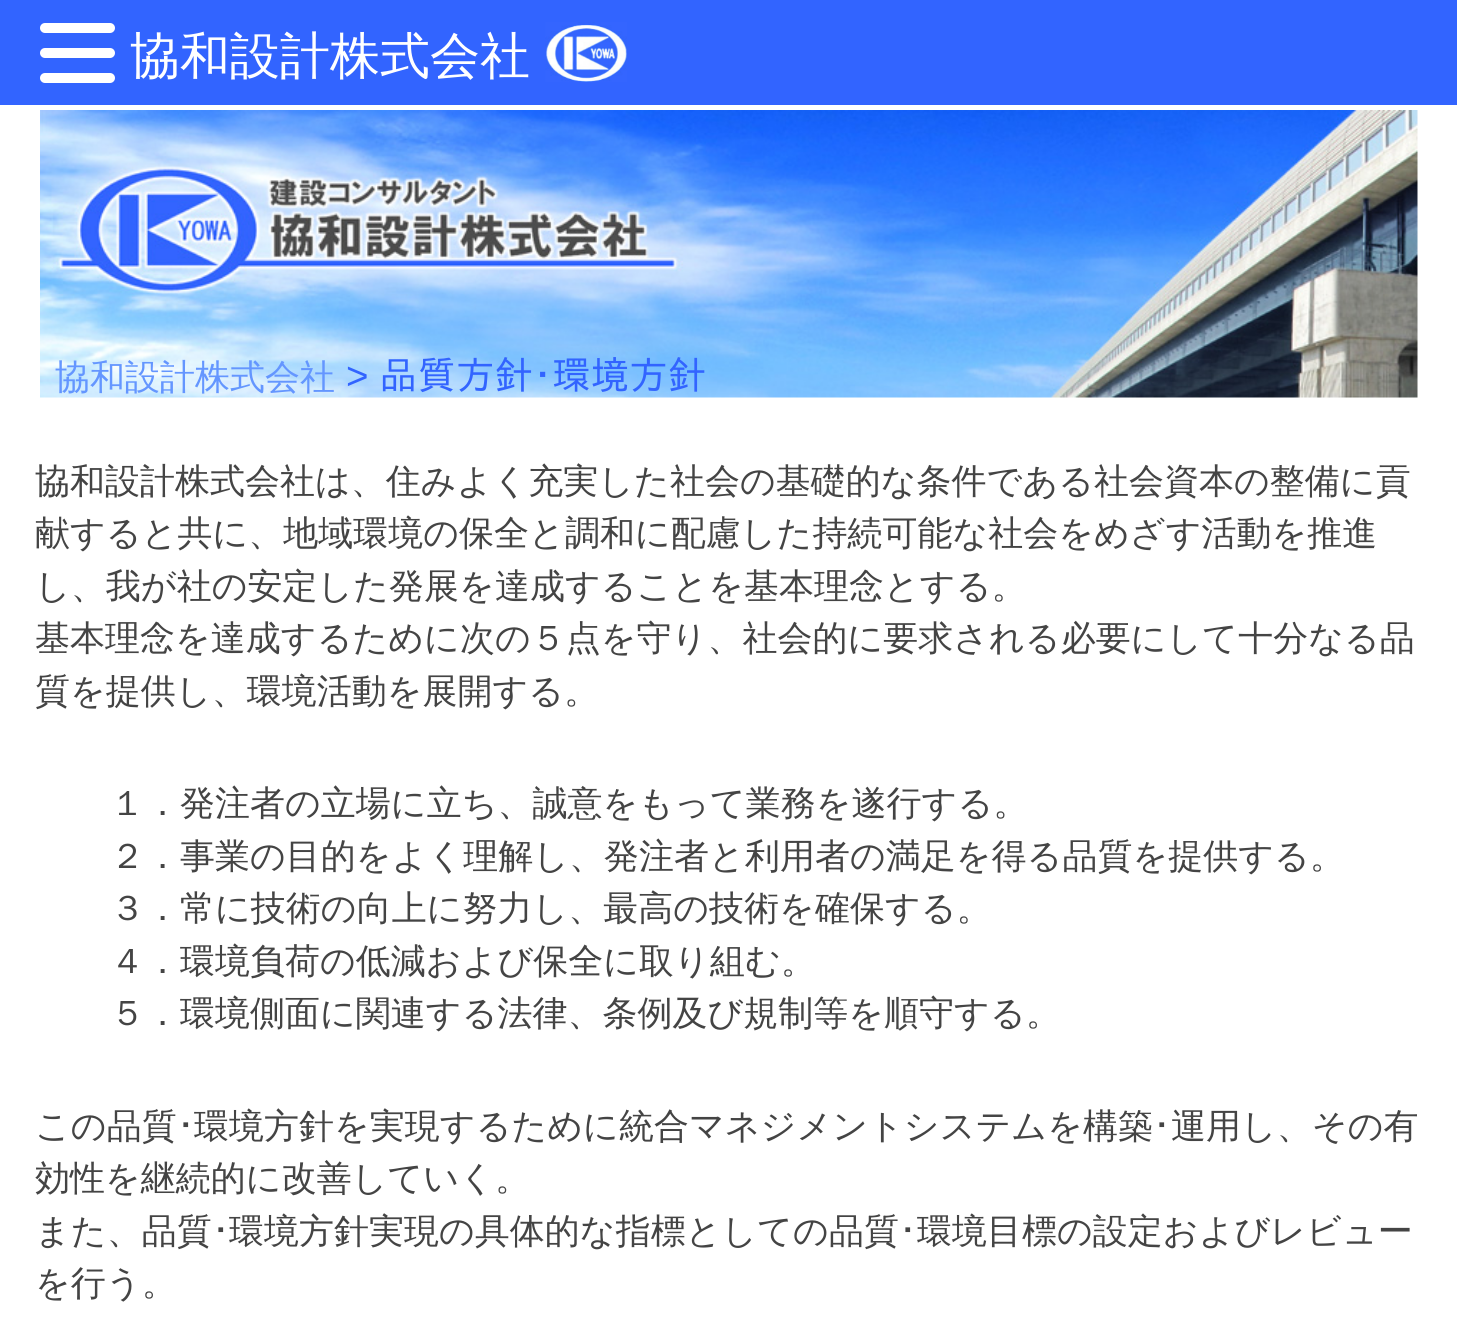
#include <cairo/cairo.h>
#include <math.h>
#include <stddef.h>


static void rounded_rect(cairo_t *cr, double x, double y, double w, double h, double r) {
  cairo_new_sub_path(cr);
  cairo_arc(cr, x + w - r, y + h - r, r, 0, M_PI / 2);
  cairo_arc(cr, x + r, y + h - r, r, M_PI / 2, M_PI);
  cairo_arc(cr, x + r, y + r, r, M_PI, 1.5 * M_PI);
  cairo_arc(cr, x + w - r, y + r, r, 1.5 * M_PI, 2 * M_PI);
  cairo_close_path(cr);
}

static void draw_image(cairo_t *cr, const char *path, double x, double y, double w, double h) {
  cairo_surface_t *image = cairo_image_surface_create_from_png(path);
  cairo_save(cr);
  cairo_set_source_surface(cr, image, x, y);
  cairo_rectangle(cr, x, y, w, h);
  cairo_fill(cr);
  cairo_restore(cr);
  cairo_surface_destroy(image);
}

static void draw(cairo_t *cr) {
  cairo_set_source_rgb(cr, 1, 1, 1);
  cairo_paint(cr);
  cairo_set_source_rgb(cr, 50 / 255.0, 100 / 255.0, 1);
  cairo_rectangle(cr, 0, 0, 1457, 105);
  cairo_fill(cr);
  cairo_set_source_rgb(cr, 1, 1, 1);
  rounded_rect(cr, 40, 48, 75, 10, 5);
  cairo_fill(cr);
  rounded_rect(cr, 40, 23, 75, 10, 5);
  cairo_fill(cr);
  rounded_rect(cr, 40, 73, 75, 10, 5);
  cairo_fill(cr);
  draw_image(cr, "images/1.png", 545, 22, 82, 60);
  draw_image(cr, "images/2.png", 40, 110, 1378, 288);
  cairo_select_font_face(cr, "WenQuanYi Zen Hei Medium", CAIRO_FONT_SLANT_NORMAL, CAIRO_FONT_WEIGHT_NORMAL);
  cairo_set_font_size(cr, 50);
  cairo_move_to(cr, 130, 73);
  cairo_show_text(cr, "協和設計株式会社");
  cairo_set_font_size(cr, 35);
  cairo_set_source_rgb(cr, 100 / 255.0, 150 / 255.0, 1);
  cairo_move_to(cr, 55, 389);
  cairo_show_text(cr, "協和設計株式会社");
  cairo_select_font_face(cr, "Liberation Sans", CAIRO_FONT_SLANT_NORMAL, CAIRO_FONT_WEIGHT_NORMAL);
  cairo_set_font_size(cr, 38.5);
  cairo_set_source_rgb(cr, 50 / 255.0, 100 / 255.0, 1);
  cairo_move_to(cr, 346, 389);
  cairo_show_text(cr, ">");
  cairo_select_font_face(cr, "IPAPGothic", CAIRO_FONT_SLANT_NORMAL, CAIRO_FONT_WEIGHT_NORMAL);
  cairo_move_to(cr, 379, 389);
  cairo_show_text(cr, "品質方針･環境方針");
  cairo_select_font_face(cr, "WenQuanYi Zen Hei Medium", CAIRO_FONT_SLANT_NORMAL, CAIRO_FONT_WEIGHT_NORMAL);
  cairo_set_font_size(cr, 35);
  cairo_set_source_rgb(cr, 68 / 255.0, 68 / 255.0, 68 / 255.0);
  cairo_move_to(cr, 35, 493);
  cairo_show_text(cr, "協和設計株式会社は、住みよく充実した社会の基礎的な条件である社会資本の整備に貢");
  cairo_move_to(cr, 35, 545);
  cairo_show_text(cr, "献すると共に、地域環境の保全と調和に配慮した持続可能な社会をめざす活動を推進");
  cairo_move_to(cr, 35, 598);
  cairo_show_text(cr, "し、我が社の安定した発展を達成することを基本理念とする。");
  cairo_move_to(cr, 35, 650);
  cairo_show_text(cr, "基本理念を達成するために次の５点を守り、社会的に要求される必要にして十分なる品");
  cairo_move_to(cr, 35, 703);
  cairo_show_text(cr, "質を提供し、環境活動を展開する。");
  cairo_move_to(cr, 110, 815);
  cairo_show_text(cr, "１．発注者の立場に立ち、誠意をもって業務を遂行する。");
  cairo_move_to(cr, 110, 868);
  cairo_show_text(cr, "２．事業の目的をよく理解し、発注者と利用者の満足を得る品質を提供する。");
  cairo_move_to(cr, 110, 920);
  cairo_show_text(cr, "３．常に技術の向上に努力し、最高の技術を確保する。");
  cairo_move_to(cr, 110, 973);
  cairo_show_text(cr, "４．環境負荷の低減および保全に取り組む。");
  cairo_move_to(cr, 110, 1025);
  cairo_show_text(cr, "５．環境側面に関連する法律、条例及び規制等を順守する。");
  cairo_move_to(cr, 35, 1138);
  cairo_show_text(cr, "この品質");
  cairo_select_font_face(cr, "IPAPGothic", CAIRO_FONT_SLANT_NORMAL, CAIRO_FONT_WEIGHT_NORMAL);
  cairo_move_to(cr, 177, 1138);
  cairo_show_text(cr, "･");
  cairo_select_font_face(cr, "WenQuanYi Zen Hei Medium", CAIRO_FONT_SLANT_NORMAL, CAIRO_FONT_WEIGHT_NORMAL);
  cairo_move_to(cr, 194, 1138);
  cairo_show_text(cr, "環境方針を実現するために統合マネジメントシステムを構築");
  cairo_select_font_face(cr, "IPAPGothic", CAIRO_FONT_SLANT_NORMAL, CAIRO_FONT_WEIGHT_NORMAL);
  cairo_move_to(cr, 1153, 1138);
  cairo_show_text(cr, "･");
  cairo_select_font_face(cr, "WenQuanYi Zen Hei Medium", CAIRO_FONT_SLANT_NORMAL, CAIRO_FONT_WEIGHT_NORMAL);
  cairo_move_to(cr, 1171, 1138);
  cairo_show_text(cr, "運用し、その有");
  cairo_move_to(cr, 35, 1190);
  cairo_show_text(cr, "効性を継続的に改善していく。");
  cairo_move_to(cr, 35, 1243);
  cairo_show_text(cr, "また、品質");
  cairo_select_font_face(cr, "IPAPGothic", CAIRO_FONT_SLANT_NORMAL, CAIRO_FONT_WEIGHT_NORMAL);
  cairo_move_to(cr, 212, 1243);
  cairo_show_text(cr, "･");
  cairo_select_font_face(cr, "WenQuanYi Zen Hei Medium", CAIRO_FONT_SLANT_NORMAL, CAIRO_FONT_WEIGHT_NORMAL);
  cairo_move_to(cr, 229, 1243);
  cairo_show_text(cr, "環境方針実現の具体的な指標としての品質");
  cairo_select_font_face(cr, "IPAPGothic", CAIRO_FONT_SLANT_NORMAL, CAIRO_FONT_WEIGHT_NORMAL);
  cairo_move_to(cr, 899, 1243);
  cairo_show_text(cr, "･");
  cairo_select_font_face(cr, "WenQuanYi Zen Hei Medium", CAIRO_FONT_SLANT_NORMAL, CAIRO_FONT_WEIGHT_NORMAL);
  cairo_move_to(cr, 917, 1243);
  cairo_show_text(cr, "環境目標の設定およびレビュー");
  cairo_move_to(cr, 35, 1295);
  cairo_show_text(cr, "を行う。");
}

int main(void) {
  cairo_surface_t *surface = cairo_image_surface_create(CAIRO_FORMAT_RGB24, 1457, 1320);
  cairo_t *cr = cairo_create(surface);
  cairo_font_options_t *options = cairo_font_options_create();
  cairo_font_options_set_hint_metrics(options, CAIRO_HINT_METRICS_OFF);
  cairo_font_options_set_hint_style(options, CAIRO_HINT_STYLE_NONE);
  cairo_set_font_options(cr, options);
  cairo_set_miter_limit(cr, 4);
  draw(cr);
  cairo_surface_write_to_png(surface, "out.png");
  cairo_font_options_destroy(options);
  cairo_destroy(cr);
  cairo_surface_destroy(surface);
  return 0;
}
